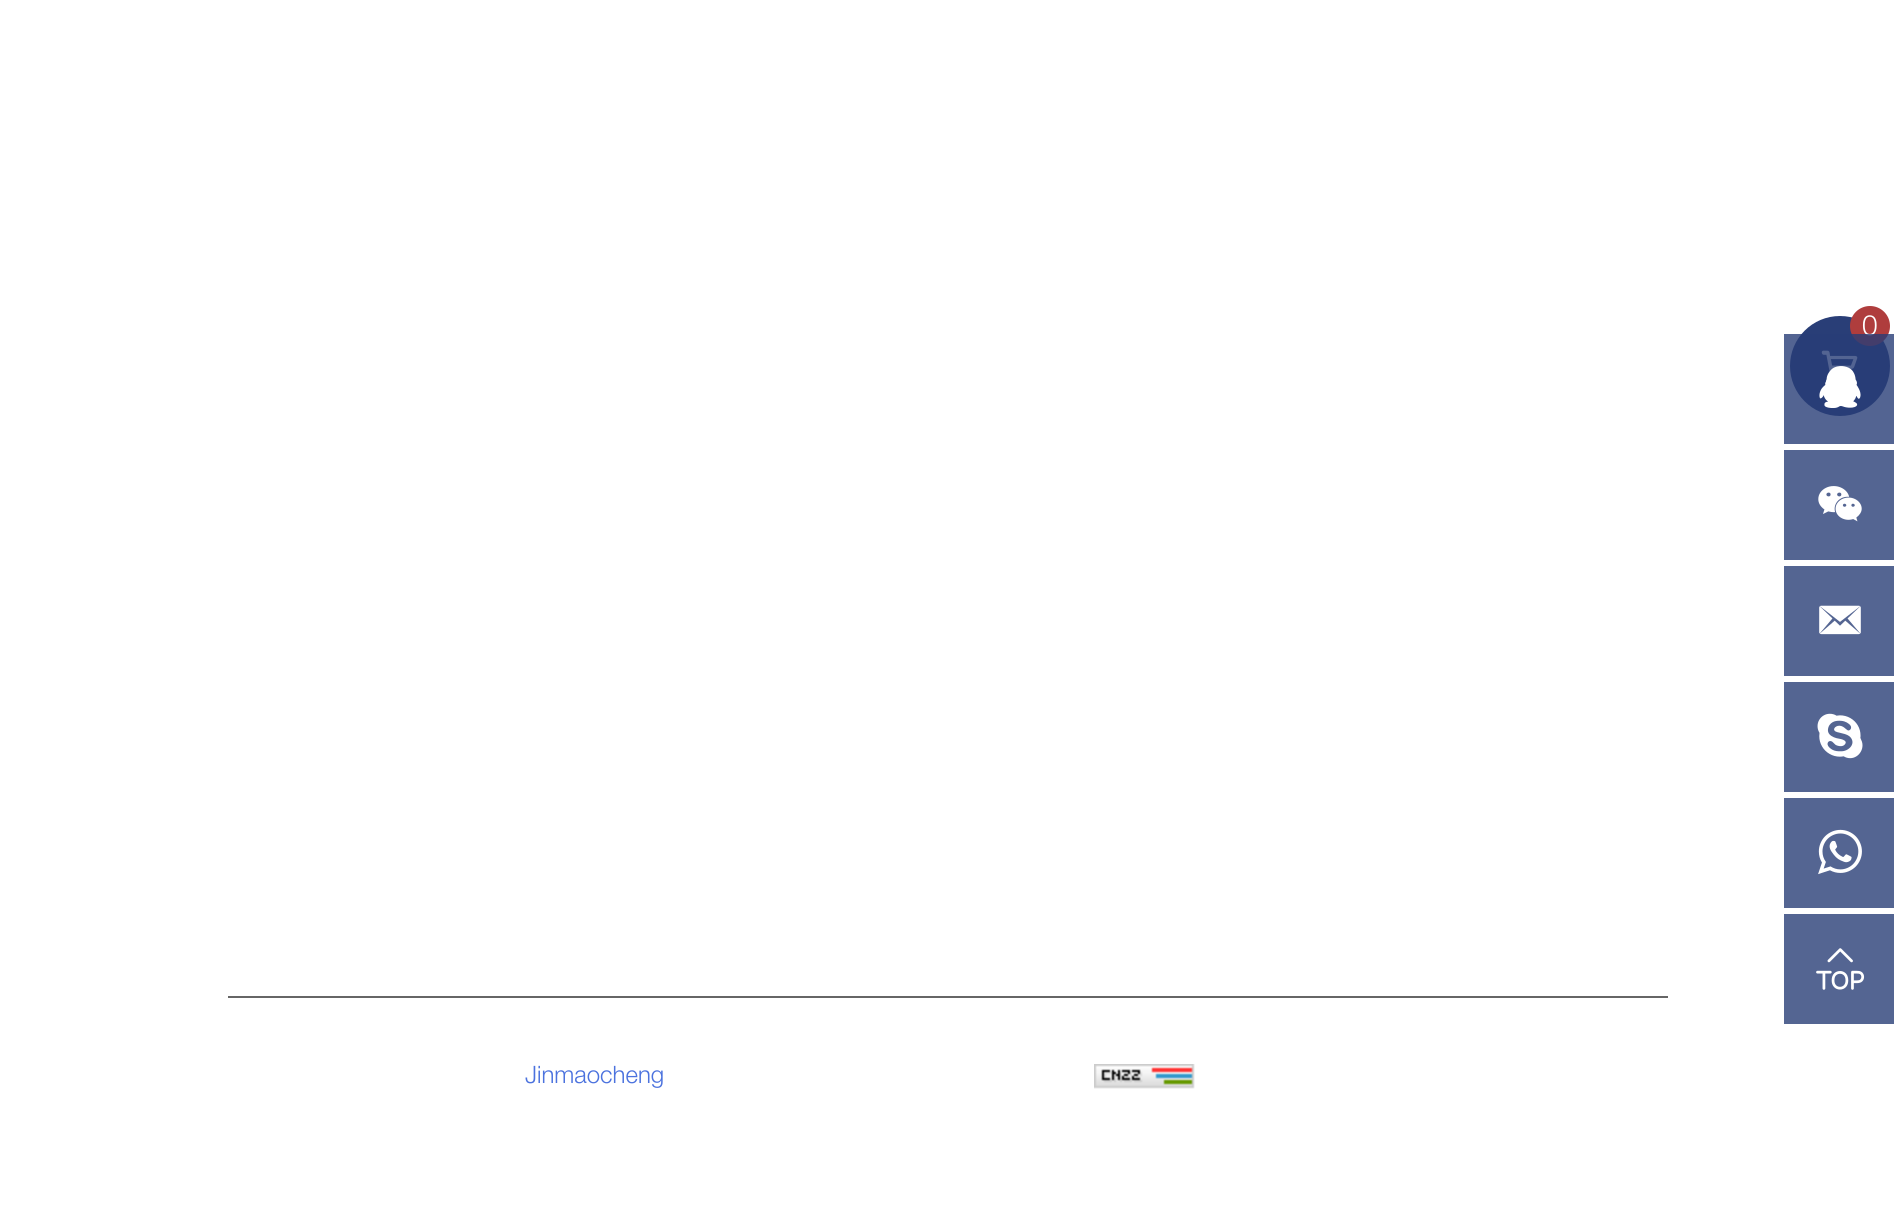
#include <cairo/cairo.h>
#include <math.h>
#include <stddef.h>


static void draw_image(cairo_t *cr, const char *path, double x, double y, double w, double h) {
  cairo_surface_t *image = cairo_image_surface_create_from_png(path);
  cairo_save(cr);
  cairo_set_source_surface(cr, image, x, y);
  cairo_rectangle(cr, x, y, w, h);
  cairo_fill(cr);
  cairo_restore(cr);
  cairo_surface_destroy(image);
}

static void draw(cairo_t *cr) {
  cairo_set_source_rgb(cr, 1, 1, 1);
  cairo_paint(cr);
  cairo_set_source_rgb(cr, 41 / 255.0, 62 / 255.0, 119 / 255.0);
  cairo_arc(cr, 1840, 366, 50, 0, 2 * M_PI);
  cairo_fill(cr);
  cairo_set_source_rgb(cr, 175 / 255.0, 61 / 255.0, 61 / 255.0);
  cairo_arc(cr, 1870, 326, 20, 0, 2 * M_PI);
  cairo_fill(cr);
  draw_image(cr, "images/1.png", 1821, 350, 37, 23);
  cairo_set_source_rgb(cr, 84 / 255.0, 101 / 255.0, 146 / 255.0);
  cairo_rectangle(cr, 1784, 450, 110, 110);
  cairo_fill(cr);
  draw_image(cr, "images/3.png", 1818, 486, 44, 36);
  cairo_rectangle(cr, 1784, 566, 110, 110);
  cairo_fill(cr);
  draw_image(cr, "images/4.png", 1819, 605, 42, 30);
  cairo_rectangle(cr, 1784, 682, 110, 110);
  cairo_fill(cr);
  draw_image(cr, "images/5.png", 1817, 713, 46, 46);
  cairo_rectangle(cr, 1784, 798, 110, 110);
  cairo_fill(cr);
  draw_image(cr, "images/6.png", 1818, 829, 44, 46);
  cairo_rectangle(cr, 1784, 914, 110, 110);
  cairo_fill(cr);
  draw_image(cr, "images/7.png", 1816, 948, 49, 42);
  cairo_set_source_rgb(cr, 102 / 255.0, 102 / 255.0, 102 / 255.0);
  cairo_rectangle(cr, 228, 996, 1440, 2);
  cairo_fill(cr);
  draw_image(cr, "images/8.png", 1094, 1064, 101, 25);
  cairo_select_font_face(cr, "Helvetica Neue Light", CAIRO_FONT_SLANT_NORMAL, CAIRO_FONT_WEIGHT_NORMAL);
  cairo_set_font_size(cr, 28);
  cairo_set_source_rgb(cr, 1, 1, 1);
  cairo_move_to(cr, 1862, 335);
  cairo_show_text(cr, "0");
  cairo_set_source_rgba(cr, 41 / 255.0, 62 / 255.0, 119 / 255.0, 0.8);
  cairo_rectangle(cr, 1784, 334, 110, 110);
  cairo_fill(cr);
  draw_image(cr, "images/2.png", 1819, 366, 42, 42);
  cairo_set_font_size(cr, 24);
  cairo_set_source_rgb(cr, 75 / 255.0, 114 / 255.0, 222 / 255.0);
  cairo_move_to(cr, 525, 1083);
  cairo_show_text(cr, "Jinmaocheng");
}

int main(void) {
  cairo_surface_t *surface = cairo_image_surface_create(CAIRO_FORMAT_RGB24, 1894, 1212);
  cairo_t *cr = cairo_create(surface);
  cairo_font_options_t *options = cairo_font_options_create();
  cairo_font_options_set_hint_metrics(options, CAIRO_HINT_METRICS_OFF);
  cairo_font_options_set_hint_style(options, CAIRO_HINT_STYLE_NONE);
  cairo_set_font_options(cr, options);
  cairo_set_miter_limit(cr, 4);
  draw(cr);
  cairo_surface_write_to_png(surface, "out.png");
  cairo_font_options_destroy(options);
  cairo_destroy(cr);
  cairo_surface_destroy(surface);
  return 0;
}
